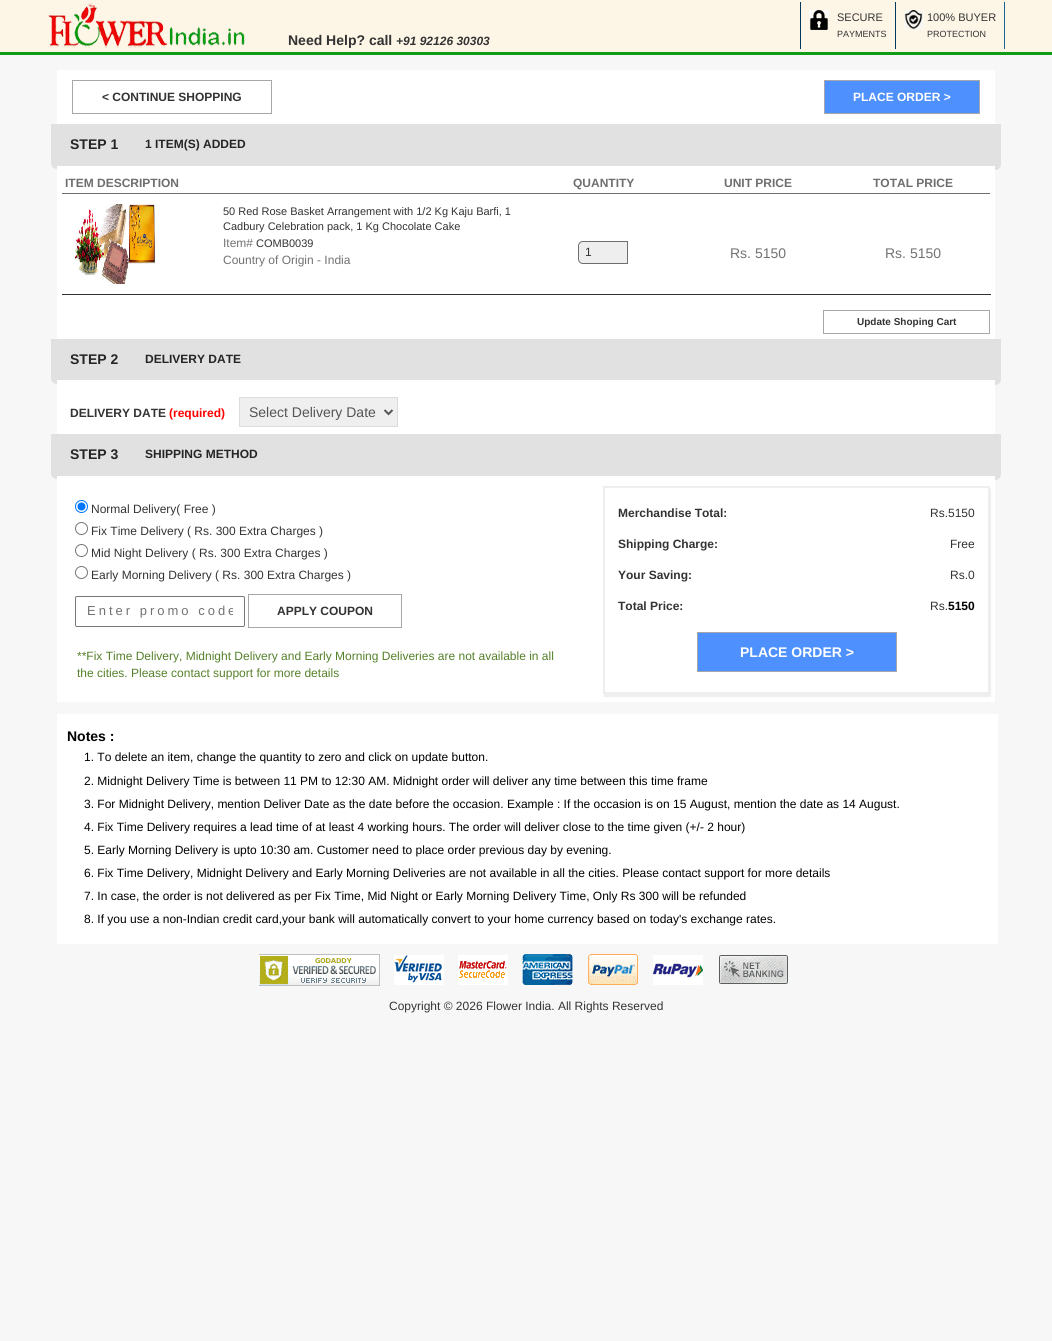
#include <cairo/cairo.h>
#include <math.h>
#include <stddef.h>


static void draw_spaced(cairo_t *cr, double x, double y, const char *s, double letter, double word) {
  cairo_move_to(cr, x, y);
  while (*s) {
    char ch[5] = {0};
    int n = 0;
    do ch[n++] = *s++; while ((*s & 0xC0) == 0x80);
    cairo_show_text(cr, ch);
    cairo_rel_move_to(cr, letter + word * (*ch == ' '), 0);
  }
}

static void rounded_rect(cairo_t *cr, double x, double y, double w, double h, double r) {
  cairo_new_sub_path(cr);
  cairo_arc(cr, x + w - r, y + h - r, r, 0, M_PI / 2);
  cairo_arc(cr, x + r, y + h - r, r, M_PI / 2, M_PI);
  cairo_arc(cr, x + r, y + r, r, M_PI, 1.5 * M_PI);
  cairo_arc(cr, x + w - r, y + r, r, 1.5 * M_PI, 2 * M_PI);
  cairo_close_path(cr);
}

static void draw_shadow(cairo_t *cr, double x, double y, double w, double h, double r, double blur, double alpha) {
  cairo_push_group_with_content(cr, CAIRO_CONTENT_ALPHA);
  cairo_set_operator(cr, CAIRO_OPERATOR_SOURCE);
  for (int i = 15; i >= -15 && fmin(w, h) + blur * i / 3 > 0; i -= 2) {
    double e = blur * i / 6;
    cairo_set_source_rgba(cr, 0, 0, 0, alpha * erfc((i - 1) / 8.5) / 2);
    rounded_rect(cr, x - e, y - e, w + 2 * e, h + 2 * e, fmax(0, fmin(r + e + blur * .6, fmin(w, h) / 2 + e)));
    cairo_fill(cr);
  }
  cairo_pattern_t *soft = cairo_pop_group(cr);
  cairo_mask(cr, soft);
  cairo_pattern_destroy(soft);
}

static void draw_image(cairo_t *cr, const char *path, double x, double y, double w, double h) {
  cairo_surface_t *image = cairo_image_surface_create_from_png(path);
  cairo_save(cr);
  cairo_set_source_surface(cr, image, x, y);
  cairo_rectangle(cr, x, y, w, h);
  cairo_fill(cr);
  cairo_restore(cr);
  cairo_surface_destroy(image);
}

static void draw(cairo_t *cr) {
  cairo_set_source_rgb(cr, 247 / 255.0, 247 / 255.0, 247 / 255.0);
  cairo_paint(cr);
  cairo_set_source_rgb(cr, 253 / 255.0, 245 / 255.0, 230 / 255.0);
  cairo_rectangle(cr, 0, 0, 1052, 52);
  cairo_fill(cr);
  cairo_set_source_rgb(cr, 16 / 255.0, 156 / 255.0, 21 / 255.0);
  cairo_rectangle(cr, 0, 52, 1052, 3);
  cairo_fill(cr);
  draw_image(cr, "images/1.png", 48, 3, 197, 45);
  cairo_set_source_rgb(cr, 0, 58 / 255.0, 94 / 255.0);
  cairo_rectangle(cr, 800, 2, 1, 47);
  cairo_fill(cr);
  draw_image(cr, "images/2.png", 809, 10, 20, 20);
  cairo_set_source_rgb(cr, 26 / 255.0, 101 / 255.0, 146 / 255.0);
  cairo_rectangle(cr, 1004, 2, 1, 47);
  cairo_fill(cr);
  cairo_set_source_rgb(cr, 0, 58 / 255.0, 94 / 255.0);
  cairo_rectangle(cr, 895, 2, 1, 47);
  cairo_fill(cr);
  draw_image(cr, "images/3.png", 904, 10, 20, 20);
  cairo_set_source_rgb(cr, 1, 1, 1);
  cairo_rectangle(cr, 57, 70, 938, 54);
  cairo_fill(cr);
  cairo_rectangle(cr, 72.5, 80.5, 199, 33);
  cairo_set_source_rgb(cr, 167 / 255.0, 167 / 255.0, 167 / 255.0);
  cairo_set_line_width(cr, 1);
  cairo_stroke(cr);
  cairo_set_source_rgb(cr, 77 / 255.0, 144 / 255.0, 254 / 255.0);
  cairo_rectangle(cr, 824.5, 80.5, 155, 33);
  cairo_fill_preserve(cr);
  cairo_set_source_rgb(cr, 167 / 255.0, 167 / 255.0, 167 / 255.0);
  cairo_stroke(cr);
  cairo_set_source_rgb(cr, 225 / 255.0, 225 / 255.0, 225 / 255.0);
  cairo_rectangle(cr, 57, 124, 938, 42);
  cairo_fill(cr);
  cairo_new_path(cr);
  cairo_move_to(cr, 51, 124);
  cairo_line_to(cr, 57, 124);
  cairo_line_to(cr, 57, 169);
  cairo_curve_to(cr, 53.5, 169, 51, 166.5, 51, 163);
  cairo_close_path(cr);
  cairo_fill(cr);
  cairo_new_path(cr);
  cairo_move_to(cr, 995, 124);
  cairo_line_to(cr, 1001, 124);
  cairo_line_to(cr, 1001, 164);
  cairo_curve_to(cr, 1001, 167.5, 998.5, 170, 995, 170);
  cairo_close_path(cr);
  cairo_fill(cr);
  cairo_set_source_rgb(cr, 1, 1, 1);
  cairo_rectangle(cr, 57, 166, 938, 173);
  cairo_fill(cr);
  cairo_set_source_rgb(cr, 110 / 255.0, 110 / 255.0, 110 / 255.0);
  cairo_rectangle(cr, 62, 193, 928, 1);
  cairo_fill(cr);
  draw_image(cr, "images/4.png", 75, 204, 80, 80);
  cairo_set_source_rgb(cr, 238 / 255.0, 238 / 255.0, 238 / 255.0);
  cairo_new_path(cr);
  cairo_move_to(cr, 583, 241.5);
  cairo_line_to(cr, 627.5, 241.5);
  cairo_line_to(cr, 627.5, 263.5);
  cairo_line_to(cr, 583, 263.5);
  cairo_curve_to(cr, 580.5, 263.5, 578.5, 261.5, 578.5, 259);
  cairo_line_to(cr, 578.5, 246);
  cairo_curve_to(cr, 578.5, 243.5, 580.5, 241.5, 583, 241.5);
  cairo_close_path(cr);
  cairo_fill_preserve(cr);
  cairo_set_source_rgb(cr, 110 / 255.0, 110 / 255.0, 110 / 255.0);
  cairo_stroke(cr);
  cairo_set_source_rgb(cr, 51 / 255.0, 51 / 255.0, 51 / 255.0);
  cairo_rectangle(cr, 62, 294, 929, 1);
  cairo_fill(cr);
  cairo_rectangle(cr, 823.5, 310.5, 166, 23);
  cairo_set_source_rgb(cr, 167 / 255.0, 167 / 255.0, 167 / 255.0);
  cairo_stroke(cr);
  cairo_set_source_rgb(cr, 225 / 255.0, 225 / 255.0, 225 / 255.0);
  cairo_rectangle(cr, 57, 339, 938, 41);
  cairo_fill(cr);
  cairo_new_path(cr);
  cairo_move_to(cr, 51, 339);
  cairo_line_to(cr, 57, 339);
  cairo_line_to(cr, 57, 384);
  cairo_curve_to(cr, 53.5, 384, 51, 381.5, 51, 378);
  cairo_close_path(cr);
  cairo_fill(cr);
  cairo_new_path(cr);
  cairo_move_to(cr, 995, 339);
  cairo_line_to(cr, 1001, 339);
  cairo_line_to(cr, 1001, 379);
  cairo_curve_to(cr, 1001, 382.5, 998.5, 385, 995, 385);
  cairo_close_path(cr);
  cairo_fill(cr);
  cairo_set_source_rgb(cr, 1, 1, 1);
  cairo_rectangle(cr, 57, 380, 938, 54);
  cairo_fill(cr);
  cairo_set_source_rgb(cr, 239 / 255.0, 239 / 255.0, 239 / 255.0);
  cairo_rectangle(cr, 239.5, 397.5, 158, 29);
  cairo_fill_preserve(cr);
  cairo_set_source_rgb(cr, 219 / 255.0, 220 / 255.0, 220 / 255.0);
  cairo_stroke(cr);
  cairo_new_path(cr);
  cairo_move_to(cr, 384.5, 410);
  cairo_line_to(cr, 388.5, 414);
  cairo_line_to(cr, 392.5, 410);
  cairo_set_source_rgb(cr, 84 / 255.0, 84 / 255.0, 84 / 255.0);
  cairo_set_line_width(cr, 2);
  cairo_stroke(cr);
  cairo_set_source_rgb(cr, 225 / 255.0, 225 / 255.0, 225 / 255.0);
  cairo_rectangle(cr, 57, 434, 938, 42);
  cairo_fill(cr);
  cairo_new_path(cr);
  cairo_move_to(cr, 51, 434);
  cairo_line_to(cr, 57, 434);
  cairo_line_to(cr, 57, 479);
  cairo_curve_to(cr, 53.5, 479, 51, 476.5, 51, 473);
  cairo_close_path(cr);
  cairo_fill(cr);
  cairo_new_path(cr);
  cairo_move_to(cr, 995, 434);
  cairo_line_to(cr, 1001, 434);
  cairo_line_to(cr, 1001, 474);
  cairo_curve_to(cr, 1001, 477.5, 998.5, 480, 995, 480);
  cairo_close_path(cr);
  cairo_fill(cr);
  cairo_set_source_rgb(cr, 1, 1, 1);
  cairo_rectangle(cr, 57, 476, 938, 226);
  cairo_fill(cr);
  cairo_arc(cr, 81.5, 506.5, 6, 0, 2 * M_PI);
  cairo_set_source_rgb(cr, 0, 117 / 255.0, 1);
  cairo_set_line_width(cr, 1);
  cairo_stroke(cr);
  cairo_arc(cr, 81.5, 506.5, 4, 0, 2 * M_PI);
  cairo_fill(cr);
  cairo_arc(cr, 81.5, 528.5, 6, 0, 2 * M_PI);
  cairo_set_source_rgb(cr, 118 / 255.0, 118 / 255.0, 118 / 255.0);
  cairo_stroke(cr);
  cairo_arc(cr, 81.5, 550.5, 6, 0, 2 * M_PI);
  cairo_stroke(cr);
  cairo_arc(cr, 81.5, 572.5, 6, 0, 2 * M_PI);
  cairo_stroke(cr);
  rounded_rect(cr, 75.5, 596.5, 169, 30, 1.5);
  cairo_stroke(cr);
  cairo_rectangle(cr, 248.5, 594.5, 153, 33);
  cairo_set_source_rgb(cr, 167 / 255.0, 167 / 255.0, 167 / 255.0);
  cairo_stroke(cr);
  cairo_save(cr);
  cairo_set_fill_rule(cr, CAIRO_FILL_RULE_EVEN_ODD);
  cairo_new_path(cr);
  cairo_move_to(cr, 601, 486);
  cairo_line_to(cr, 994, 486);
  cairo_line_to(cr, 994, 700);
  cairo_line_to(cr, 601, 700);
  cairo_close_path(cr);
  cairo_move_to(cr, 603, 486);
  cairo_line_to(cr, 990, 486);
  cairo_line_to(cr, 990, 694);
  cairo_line_to(cr, 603, 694);
  cairo_close_path(cr);
  cairo_clip(cr);
  cairo_set_source_rgb(cr, 238 / 255.0, 238 / 255.0, 238 / 255.0);
  draw_shadow(cr, 604, 489, 387, 208, 0, 0.5, 1);
  cairo_restore(cr);
  cairo_rectangle(cr, 604, 487, 385, 206);
  cairo_set_source_rgb(cr, 238 / 255.0, 238 / 255.0, 238 / 255.0);
  cairo_set_line_width(cr, 2);
  cairo_stroke(cr);
  cairo_set_source_rgb(cr, 77 / 255.0, 144 / 255.0, 254 / 255.0);
  cairo_rectangle(cr, 697.5, 632.5, 199, 39);
  cairo_fill_preserve(cr);
  cairo_set_source_rgb(cr, 167 / 255.0, 167 / 255.0, 167 / 255.0);
  cairo_set_line_width(cr, 1);
  cairo_stroke(cr);
  cairo_set_source_rgb(cr, 1, 1, 1);
  cairo_rectangle(cr, 57, 714, 941, 230);
  cairo_fill(cr);
  draw_image(cr, "images/5.png", 259, 954, 529, 32);
  cairo_rectangle(cr, 0, 1043, 1, 1);
  cairo_fill(cr);
  cairo_select_font_face(cr, "Liberation Sans", CAIRO_FONT_SLANT_NORMAL, CAIRO_FONT_WEIGHT_NORMAL);
  cairo_set_font_size(cr, 11);
  cairo_set_source_rgb(cr, 51 / 255.0, 51 / 255.0, 51 / 255.0);
  cairo_move_to(cr, 837, 21);
  cairo_show_text(cr, "SECURE");
  cairo_set_font_size(cr, 9);
  cairo_move_to(cr, 837, 37);
  cairo_show_text(cr, "PAYMENTS");
  cairo_set_font_size(cr, 11);
  cairo_move_to(cr, 927, 21);
  cairo_show_text(cr, "100% BUYER");
  cairo_set_font_size(cr, 9);
  cairo_move_to(cr, 927, 37);
  cairo_show_text(cr, "PROTECTION");
  cairo_select_font_face(cr, "Liberation Sans", CAIRO_FONT_SLANT_NORMAL, CAIRO_FONT_WEIGHT_BOLD);
  cairo_set_font_size(cr, 14);
  cairo_move_to(cr, 288, 45);
  cairo_show_text(cr, "Need Help? call");
  cairo_select_font_face(cr, "Liberation Sans", CAIRO_FONT_SLANT_ITALIC, CAIRO_FONT_WEIGHT_BOLD);
  cairo_set_font_size(cr, 12);
  cairo_move_to(cr, 396, 45);
  cairo_show_text(cr, "+91 92126 30303");
  cairo_select_font_face(cr, "Liberation Sans", CAIRO_FONT_SLANT_NORMAL, CAIRO_FONT_WEIGHT_BOLD);
  cairo_move_to(cr, 102, 101);
  cairo_show_text(cr, "< CONTINUE SHOPPING");
  cairo_set_source_rgb(cr, 1, 1, 1);
  cairo_move_to(cr, 853, 101);
  cairo_show_text(cr, "PLACE ORDER >");
  cairo_set_font_size(cr, 14);
  cairo_set_source_rgb(cr, 37 / 255.0, 37 / 255.0, 37 / 255.0);
  cairo_move_to(cr, 70, 149);
  cairo_show_text(cr, "STEP 1");
  cairo_set_font_size(cr, 12);
  cairo_move_to(cr, 145, 148);
  cairo_show_text(cr, "1 ITEM(S) ADDED");
  cairo_set_source_rgb(cr, 110 / 255.0, 110 / 255.0, 110 / 255.0);
  cairo_move_to(cr, 65, 187);
  cairo_show_text(cr, "ITEM DESCRIPTION");
  cairo_move_to(cr, 573, 187);
  cairo_show_text(cr, "QUANTITY");
  cairo_move_to(cr, 724, 187);
  cairo_show_text(cr, "UNIT PRICE");
  cairo_move_to(cr, 873, 187);
  cairo_show_text(cr, "TOTAL PRICE");
  cairo_select_font_face(cr, "Liberation Sans", CAIRO_FONT_SLANT_NORMAL, CAIRO_FONT_WEIGHT_NORMAL);
  cairo_set_font_size(cr, 11);
  cairo_set_source_rgb(cr, 51 / 255.0, 51 / 255.0, 51 / 255.0);
  cairo_move_to(cr, 223, 215);
  cairo_show_text(cr, "50 Red Rose Basket Arrangement with 1/2 Kg Kaju Barfi, 1");
  cairo_move_to(cr, 223, 230);
  cairo_show_text(cr, "Cadbury Celebration pack, 1 Kg Chocolate Cake");
  cairo_set_font_size(cr, 12);
  cairo_set_source_rgb(cr, 113 / 255.0, 114 / 255.0, 116 / 255.0);
  cairo_move_to(cr, 223, 247);
  cairo_show_text(cr, "Item#");
  cairo_set_font_size(cr, 11);
  cairo_set_source_rgb(cr, 51 / 255.0, 51 / 255.0, 51 / 255.0);
  cairo_move_to(cr, 256, 247);
  cairo_show_text(cr, "COMB0039");
  cairo_set_font_size(cr, 12);
  cairo_set_source_rgb(cr, 113 / 255.0, 114 / 255.0, 116 / 255.0);
  cairo_move_to(cr, 223, 264);
  cairo_show_text(cr, "Country of Origin - India");
  cairo_set_source_rgb(cr, 51 / 255.0, 51 / 255.0, 51 / 255.0);
  cairo_move_to(cr, 585, 256);
  cairo_show_text(cr, "1");
  cairo_set_font_size(cr, 14);
  cairo_set_source_rgb(cr, 113 / 255.0, 114 / 255.0, 116 / 255.0);
  cairo_move_to(cr, 730, 258);
  cairo_show_text(cr, "Rs. 5150");
  cairo_move_to(cr, 885, 258);
  cairo_show_text(cr, "Rs. 5150");
  cairo_select_font_face(cr, "Liberation Sans", CAIRO_FONT_SLANT_NORMAL, CAIRO_FONT_WEIGHT_BOLD);
  cairo_set_font_size(cr, 10);
  cairo_set_source_rgb(cr, 51 / 255.0, 51 / 255.0, 51 / 255.0);
  cairo_move_to(cr, 857, 325);
  cairo_show_text(cr, "Update Shoping Cart");
  cairo_set_font_size(cr, 14);
  cairo_set_source_rgb(cr, 37 / 255.0, 37 / 255.0, 37 / 255.0);
  cairo_move_to(cr, 70, 364);
  cairo_show_text(cr, "STEP 2");
  cairo_set_font_size(cr, 12);
  cairo_move_to(cr, 145, 363);
  cairo_show_text(cr, "DELIVERY DATE");
  cairo_set_source_rgb(cr, 51 / 255.0, 51 / 255.0, 51 / 255.0);
  cairo_move_to(cr, 70, 417);
  cairo_show_text(cr, "DELIVERY DATE");
  cairo_set_source_rgb(cr, 1, 0, 0);
  cairo_move_to(cr, 169, 417);
  cairo_show_text(cr, "(required)");
  cairo_select_font_face(cr, "Liberation Sans", CAIRO_FONT_SLANT_NORMAL, CAIRO_FONT_WEIGHT_NORMAL);
  cairo_set_font_size(cr, 14);
  cairo_set_source_rgb(cr, 84 / 255.0, 84 / 255.0, 84 / 255.0);
  cairo_move_to(cr, 249, 417);
  cairo_show_text(cr, "Select Delivery Date");
  cairo_select_font_face(cr, "Liberation Sans", CAIRO_FONT_SLANT_NORMAL, CAIRO_FONT_WEIGHT_BOLD);
  cairo_set_source_rgb(cr, 37 / 255.0, 37 / 255.0, 37 / 255.0);
  cairo_move_to(cr, 70, 459);
  cairo_show_text(cr, "STEP 3");
  cairo_set_font_size(cr, 12);
  cairo_move_to(cr, 145, 458);
  cairo_show_text(cr, "SHIPPING METHOD");
  cairo_select_font_face(cr, "Liberation Sans", CAIRO_FONT_SLANT_NORMAL, CAIRO_FONT_WEIGHT_NORMAL);
  cairo_set_source_rgb(cr, 51 / 255.0, 51 / 255.0, 51 / 255.0);
  cairo_move_to(cr, 91, 513);
  cairo_show_text(cr, "Normal Delivery( Free )");
  cairo_move_to(cr, 91, 535);
  cairo_show_text(cr, "Fix Time Delivery ( Rs. 300 Extra Charges )");
  cairo_move_to(cr, 91, 557);
  cairo_show_text(cr, "Mid Night Delivery ( Rs. 300 Extra Charges )");
  cairo_move_to(cr, 91, 579);
  cairo_show_text(cr, "Early Morning Delivery ( Rs. 300 Extra Charges )");
  cairo_save(cr);
  cairo_rectangle(cr, 87, 603, 146, 15);
  cairo_clip(cr);
  cairo_set_font_size(cr, 13);
  cairo_set_source_rgb(cr, 113 / 255.0, 114 / 255.0, 116 / 255.0);
  draw_spaced(cr, 87, 615, "Enter promo code", 3, 0);
  cairo_restore(cr);
  cairo_select_font_face(cr, "Liberation Sans", CAIRO_FONT_SLANT_NORMAL, CAIRO_FONT_WEIGHT_BOLD);
  cairo_move_to(cr, 277, 615);
  cairo_show_text(cr, "APPLY COUPON");
  cairo_select_font_face(cr, "Liberation Sans", CAIRO_FONT_SLANT_NORMAL, CAIRO_FONT_WEIGHT_NORMAL);
  cairo_set_source_rgb(cr, 85 / 255.0, 128 / 255.0, 42 / 255.0);
  cairo_move_to(cr, 77, 660);
  cairo_show_text(cr, "**Fix Time Delivery, Midnight Delivery and Early Morning Deliveries are not available in all");
  cairo_move_to(cr, 77, 677);
  cairo_show_text(cr, "the cities. Please contact support for more details");
  cairo_select_font_face(cr, "Liberation Sans", CAIRO_FONT_SLANT_NORMAL, CAIRO_FONT_WEIGHT_BOLD);
  cairo_set_source_rgb(cr, 51 / 255.0, 51 / 255.0, 51 / 255.0);
  cairo_move_to(cr, 618, 517);
  cairo_show_text(cr, "Merchandise Total:");
  cairo_select_font_face(cr, "Liberation Sans", CAIRO_FONT_SLANT_NORMAL, CAIRO_FONT_WEIGHT_NORMAL);
  cairo_move_to(cr, 930, 517);
  cairo_show_text(cr, "Rs.5150");
  cairo_select_font_face(cr, "Liberation Sans", CAIRO_FONT_SLANT_NORMAL, CAIRO_FONT_WEIGHT_BOLD);
  cairo_move_to(cr, 618, 548);
  cairo_show_text(cr, "Shipping Charge:");
  cairo_select_font_face(cr, "Liberation Sans", CAIRO_FONT_SLANT_NORMAL, CAIRO_FONT_WEIGHT_NORMAL);
  cairo_move_to(cr, 950, 548);
  cairo_show_text(cr, "Free");
  cairo_select_font_face(cr, "Liberation Sans", CAIRO_FONT_SLANT_NORMAL, CAIRO_FONT_WEIGHT_BOLD);
  cairo_move_to(cr, 618, 579);
  cairo_show_text(cr, "Your Saving:");
  cairo_select_font_face(cr, "Liberation Sans", CAIRO_FONT_SLANT_NORMAL, CAIRO_FONT_WEIGHT_NORMAL);
  cairo_move_to(cr, 950, 579);
  cairo_show_text(cr, "Rs.0");
  cairo_select_font_face(cr, "Liberation Sans", CAIRO_FONT_SLANT_NORMAL, CAIRO_FONT_WEIGHT_BOLD);
  cairo_move_to(cr, 618, 610);
  cairo_show_text(cr, "Total Price:");
  cairo_select_font_face(cr, "Liberation Sans", CAIRO_FONT_SLANT_NORMAL, CAIRO_FONT_WEIGHT_NORMAL);
  cairo_move_to(cr, 930, 610);
  cairo_show_text(cr, "Rs.");
  cairo_select_font_face(cr, "Liberation Sans", CAIRO_FONT_SLANT_NORMAL, CAIRO_FONT_WEIGHT_BOLD);
  cairo_set_source_rgb(cr, 0, 0, 0);
  cairo_move_to(cr, 948, 610);
  cairo_show_text(cr, "5150");
  cairo_set_font_size(cr, 14);
  cairo_set_source_rgb(cr, 1, 1, 1);
  cairo_move_to(cr, 740, 657);
  cairo_show_text(cr, "PLACE ORDER >");
  cairo_set_source_rgb(cr, 0, 0, 0);
  cairo_move_to(cr, 67, 741);
  cairo_show_text(cr, "Notes :");
  cairo_select_font_face(cr, "Liberation Sans", CAIRO_FONT_SLANT_NORMAL, CAIRO_FONT_WEIGHT_NORMAL);
  cairo_set_font_size(cr, 12);
  cairo_move_to(cr, 84, 761);
  cairo_show_text(cr, "1. To delete an item, change the quantity to zero and click on update button.");
  cairo_move_to(cr, 84, 785);
  cairo_show_text(cr, "2. Midnight Delivery Time is between 11 PM to 12:30 AM. Midnight order will deliver any time between this time frame");
  cairo_move_to(cr, 84, 808);
  cairo_show_text(cr, "3. For Midnight Delivery, mention Deliver Date as the date before the occasion. Example : If the occasion is on 15 August, mention the date as 14 August.");
  cairo_move_to(cr, 84, 831);
  cairo_show_text(cr, "4. Fix Time Delivery requires a lead time of at least 4 working hours. The order will deliver close to the time given (+/- 2 hour)");
  cairo_move_to(cr, 84, 854);
  cairo_show_text(cr, "5. Early Morning Delivery is upto 10:30 am. Customer need to place order previous day by evening.");
  cairo_move_to(cr, 84, 877);
  cairo_show_text(cr, "6. Fix Time Delivery, Midnight Delivery and Early Morning Deliveries are not available in all the cities. Please contact support for more details");
  cairo_move_to(cr, 84, 900);
  cairo_show_text(cr, "7. In case, the order is not delivered as per Fix Time, Mid Night or Early Morning Delivery Time, Only Rs 300 will be refunded");
  cairo_move_to(cr, 84, 923);
  cairo_show_text(cr, "8. If you use a non-Indian credit card,your bank will automatically convert to your home currency based on today's exchange rates.");
  cairo_set_source_rgb(cr, 51 / 255.0, 51 / 255.0, 51 / 255.0);
  cairo_move_to(cr, 389, 1010);
  cairo_show_text(cr, "Copyright © 2026 Flower India. All Rights Reserved");
}

int main(void) {
  cairo_surface_t *surface = cairo_image_surface_create(CAIRO_FORMAT_RGB24, 1052, 1341);
  cairo_t *cr = cairo_create(surface);
  cairo_font_options_t *options = cairo_font_options_create();
  cairo_font_options_set_hint_metrics(options, CAIRO_HINT_METRICS_OFF);
  cairo_font_options_set_hint_style(options, CAIRO_HINT_STYLE_NONE);
  cairo_set_font_options(cr, options);
  cairo_set_miter_limit(cr, 4);
  draw(cr);
  cairo_surface_write_to_png(surface, "out.png");
  cairo_font_options_destroy(options);
  cairo_destroy(cr);
  cairo_surface_destroy(surface);
  return 0;
}
